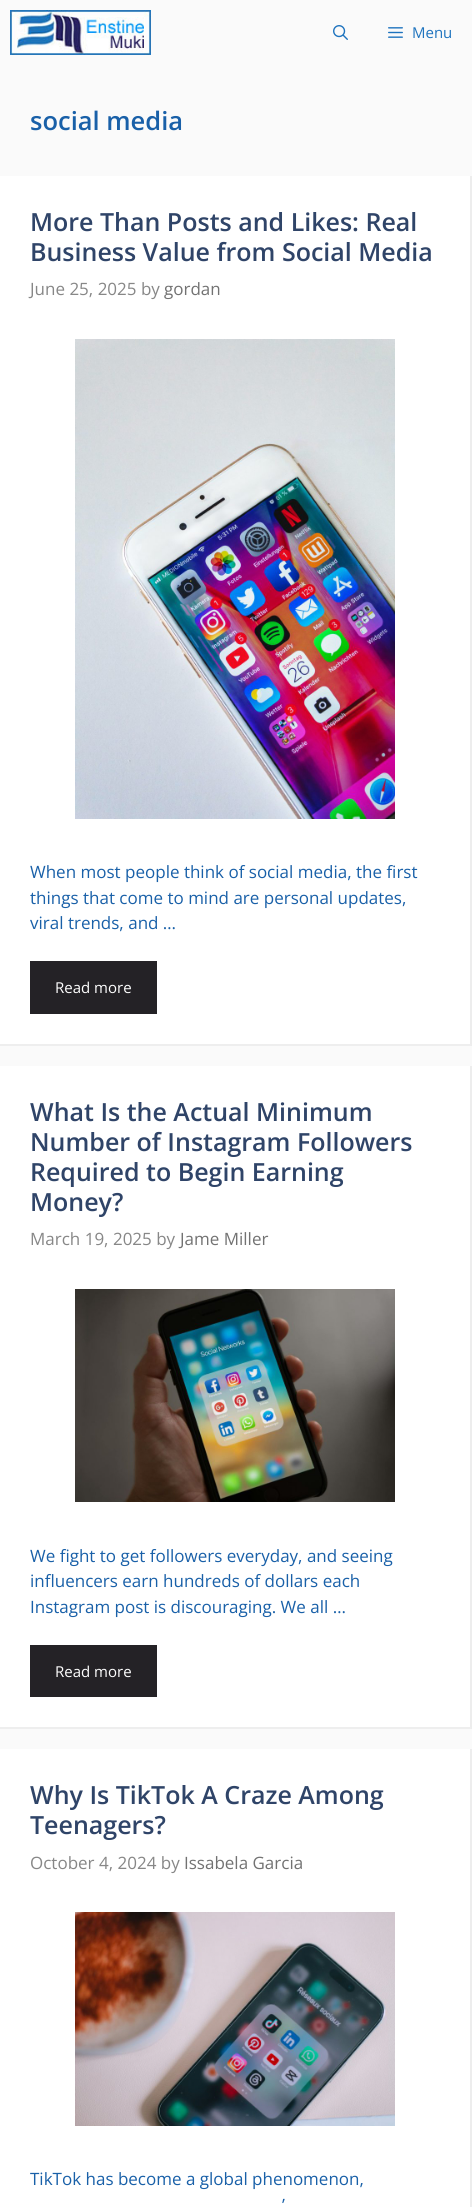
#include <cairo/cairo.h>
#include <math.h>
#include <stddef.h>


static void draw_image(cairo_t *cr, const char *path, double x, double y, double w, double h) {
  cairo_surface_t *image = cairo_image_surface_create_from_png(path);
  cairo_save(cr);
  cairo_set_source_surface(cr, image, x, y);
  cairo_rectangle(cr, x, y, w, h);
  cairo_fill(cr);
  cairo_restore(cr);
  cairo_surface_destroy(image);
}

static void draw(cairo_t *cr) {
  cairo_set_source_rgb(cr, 250 / 255.0, 250 / 255.0, 250 / 255.0);
  cairo_paint(cr);
  draw_image(cr, "images/1.png", 10, 10, 141, 45);
  draw_image(cr, "images/2.png", 333, 25, 15, 15);
  draw_image(cr, "images/3.png", 388, 27, 15, 11);
  cairo_set_source_rgb(cr, 1, 1, 1);
  cairo_rectangle(cr, 0, 176, 472, 870);
  cairo_fill(cr);
  cairo_set_source_rgb(cr, 237 / 255.0, 237 / 255.0, 237 / 255.0);
  cairo_new_path(cr);
  cairo_move_to(cr, 472, 176);
  cairo_line_to(cr, 472, 1046);
  cairo_line_to(cr, 470, 1044);
  cairo_line_to(cr, 470, 176);
  cairo_close_path(cr);
  cairo_fill(cr);
  cairo_set_source_rgba(cr, 0, 0, 0, 0.07);
  cairo_new_path(cr);
  cairo_move_to(cr, 472, 1046);
  cairo_line_to(cr, 0, 1046);
  cairo_line_to(cr, 0, 1044);
  cairo_line_to(cr, 470, 1044);
  cairo_close_path(cr);
  cairo_fill(cr);
  draw_image(cr, "images/4.png", 75, 339, 320, 480);
  cairo_set_source_rgb(cr, 36 / 255.0, 34 / 255.0, 38 / 255.0);
  cairo_rectangle(cr, 30, 961, 127, 53);
  cairo_fill(cr);
  cairo_set_source_rgb(cr, 1, 1, 1);
  cairo_rectangle(cr, 0, 1066, 472, 663);
  cairo_fill(cr);
  cairo_set_source_rgb(cr, 237 / 255.0, 237 / 255.0, 237 / 255.0);
  cairo_new_path(cr);
  cairo_move_to(cr, 472, 1066);
  cairo_line_to(cr, 472, 1729);
  cairo_line_to(cr, 470, 1727);
  cairo_line_to(cr, 470, 1066);
  cairo_close_path(cr);
  cairo_fill(cr);
  cairo_set_source_rgba(cr, 0, 0, 0, 0.07);
  cairo_new_path(cr);
  cairo_move_to(cr, 472, 1729);
  cairo_line_to(cr, 0, 1729);
  cairo_line_to(cr, 0, 1727);
  cairo_line_to(cr, 470, 1727);
  cairo_close_path(cr);
  cairo_fill(cr);
  draw_image(cr, "images/5.png", 75, 1289, 320, 213);
  cairo_set_source_rgb(cr, 36 / 255.0, 34 / 255.0, 38 / 255.0);
  cairo_rectangle(cr, 30, 1645, 127, 52);
  cairo_fill(cr);
  cairo_set_source_rgb(cr, 1, 1, 1);
  cairo_rectangle(cr, 0, 1749, 470, 458);
  cairo_fill(cr);
  cairo_set_source_rgb(cr, 237 / 255.0, 237 / 255.0, 237 / 255.0);
  cairo_new_path(cr);
  cairo_move_to(cr, 472, 1749);
  cairo_line_to(cr, 472, 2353);
  cairo_line_to(cr, 470, 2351);
  cairo_line_to(cr, 470, 1749);
  cairo_close_path(cr);
  cairo_fill(cr);
  draw_image(cr, "images/6.png", 75, 1912, 320, 214);
  cairo_select_font_face(cr, "Open Sans", CAIRO_FONT_SLANT_NORMAL, CAIRO_FONT_WEIGHT_NORMAL);
  cairo_set_font_size(cr, 15);
  cairo_set_source_rgb(cr, 30 / 255.0, 115 / 255.0, 190 / 255.0);
  cairo_move_to(cr, 412, 38);
  cairo_show_text(cr, "Menu");
  cairo_select_font_face(cr, "Open Sans SemiBold", CAIRO_FONT_SLANT_NORMAL, CAIRO_FONT_WEIGHT_NORMAL);
  cairo_set_font_size(cr, 25.5);
  cairo_set_source_rgb(cr, 25 / 255.0, 96 / 255.0, 168 / 255.0);
  cairo_move_to(cr, 30, 130);
  cairo_show_text(cr, "social media");
  cairo_set_font_size(cr, 25);
  cairo_set_source_rgb(cr, 47 / 255.0, 68 / 255.0, 104 / 255.0);
  cairo_move_to(cr, 30, 231);
  cairo_show_text(cr, "More Than Posts and Likes: Real");
  cairo_move_to(cr, 30, 261);
  cairo_show_text(cr, "Business Value from Social Media");
  cairo_select_font_face(cr, "Open Sans", CAIRO_FONT_SLANT_NORMAL, CAIRO_FONT_WEIGHT_NORMAL);
  cairo_set_font_size(cr, 17);
  cairo_set_source_rgb(cr, 135 / 255.0, 135 / 255.0, 135 / 255.0);
  cairo_move_to(cr, 30, 295);
  cairo_show_text(cr, "June 25, 2025 by");
  cairo_set_source_rgb(cr, 114 / 255.0, 114 / 255.0, 114 / 255.0);
  cairo_move_to(cr, 164, 295);
  cairo_show_text(cr, "gordan");
  cairo_set_source_rgb(cr, 25 / 255.0, 96 / 255.0, 168 / 255.0);
  cairo_move_to(cr, 30, 878);
  cairo_show_text(cr, "When most people think of social media, the first");
  cairo_move_to(cr, 30, 904);
  cairo_show_text(cr, "things that come to mind are personal updates,");
  cairo_move_to(cr, 30, 929);
  cairo_show_text(cr, "viral trends, and …");
  cairo_set_font_size(cr, 15);
  cairo_set_source_rgb(cr, 1, 1, 1);
  cairo_move_to(cr, 55, 993);
  cairo_show_text(cr, "Read more");
  cairo_select_font_face(cr, "Open Sans SemiBold", CAIRO_FONT_SLANT_NORMAL, CAIRO_FONT_WEIGHT_NORMAL);
  cairo_set_font_size(cr, 25);
  cairo_set_source_rgb(cr, 47 / 255.0, 68 / 255.0, 104 / 255.0);
  cairo_move_to(cr, 30, 1121);
  cairo_show_text(cr, "What Is the Actual Minimum");
  cairo_move_to(cr, 30, 1151);
  cairo_show_text(cr, "Number of Instagram Followers");
  cairo_move_to(cr, 30, 1181);
  cairo_show_text(cr, "Required to Begin Earning");
  cairo_move_to(cr, 30, 1211);
  cairo_show_text(cr, "Money?");
  cairo_select_font_face(cr, "Open Sans", CAIRO_FONT_SLANT_NORMAL, CAIRO_FONT_WEIGHT_NORMAL);
  cairo_set_font_size(cr, 17);
  cairo_set_source_rgb(cr, 135 / 255.0, 135 / 255.0, 135 / 255.0);
  cairo_move_to(cr, 30, 1245);
  cairo_show_text(cr, "March 19, 2025 by");
  cairo_set_source_rgb(cr, 114 / 255.0, 114 / 255.0, 114 / 255.0);
  cairo_move_to(cr, 180, 1245);
  cairo_show_text(cr, "Jame Miller");
  cairo_set_source_rgb(cr, 25 / 255.0, 96 / 255.0, 168 / 255.0);
  cairo_move_to(cr, 30, 1562);
  cairo_show_text(cr, "We fight to get followers everyday, and seeing");
  cairo_move_to(cr, 30, 1587);
  cairo_show_text(cr, "influencers earn hundreds of dollars each");
  cairo_move_to(cr, 30, 1613);
  cairo_show_text(cr, "Instagram post is discouraging. We all …");
  cairo_set_font_size(cr, 15);
  cairo_set_source_rgb(cr, 1, 1, 1);
  cairo_move_to(cr, 55, 1677);
  cairo_show_text(cr, "Read more");
  cairo_select_font_face(cr, "Open Sans SemiBold", CAIRO_FONT_SLANT_NORMAL, CAIRO_FONT_WEIGHT_NORMAL);
  cairo_set_font_size(cr, 25);
  cairo_set_source_rgb(cr, 47 / 255.0, 68 / 255.0, 104 / 255.0);
  cairo_move_to(cr, 30, 1804);
  cairo_show_text(cr, "Why Is TikTok A Craze Among");
  cairo_move_to(cr, 30, 1834);
  cairo_show_text(cr, "Teenagers?");
  cairo_select_font_face(cr, "Open Sans", CAIRO_FONT_SLANT_NORMAL, CAIRO_FONT_WEIGHT_NORMAL);
  cairo_set_font_size(cr, 17);
  cairo_set_source_rgb(cr, 135 / 255.0, 135 / 255.0, 135 / 255.0);
  cairo_move_to(cr, 30, 1869);
  cairo_show_text(cr, "October 4, 2024 by");
  cairo_set_source_rgb(cr, 114 / 255.0, 114 / 255.0, 114 / 255.0);
  cairo_move_to(cr, 184, 1869);
  cairo_show_text(cr, "Issabela Garcia");
  cairo_set_source_rgb(cr, 25 / 255.0, 96 / 255.0, 168 / 255.0);
  cairo_move_to(cr, 30, 2185);
  cairo_show_text(cr, "TikTok has become a global phenomenon,");
  cairo_move_to(cr, 282, 2211);
  cairo_show_text(cr, "’");
}

int main(void) {
  cairo_surface_t *surface = cairo_image_surface_create(CAIRO_FORMAT_RGB24, 472, 2207);
  cairo_t *cr = cairo_create(surface);
  cairo_font_options_t *options = cairo_font_options_create();
  cairo_font_options_set_hint_metrics(options, CAIRO_HINT_METRICS_OFF);
  cairo_font_options_set_hint_style(options, CAIRO_HINT_STYLE_NONE);
  cairo_set_font_options(cr, options);
  cairo_set_miter_limit(cr, 4);
  draw(cr);
  cairo_surface_write_to_png(surface, "out.png");
  cairo_font_options_destroy(options);
  cairo_destroy(cr);
  cairo_surface_destroy(surface);
  return 0;
}
